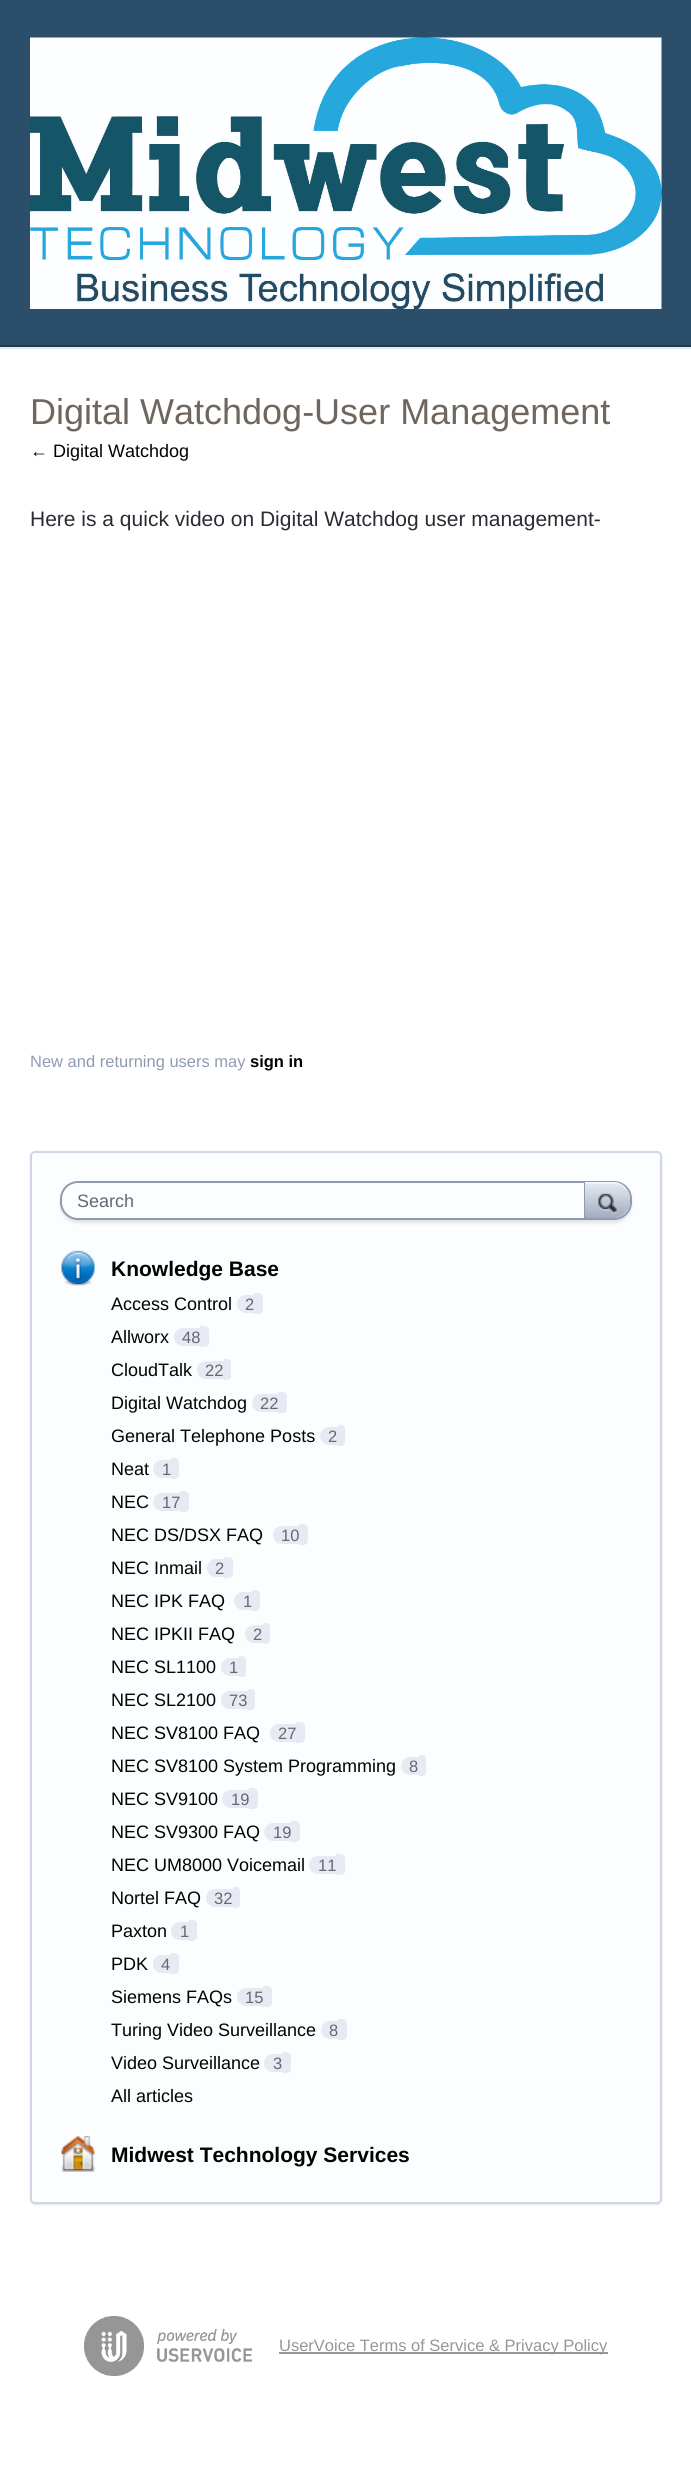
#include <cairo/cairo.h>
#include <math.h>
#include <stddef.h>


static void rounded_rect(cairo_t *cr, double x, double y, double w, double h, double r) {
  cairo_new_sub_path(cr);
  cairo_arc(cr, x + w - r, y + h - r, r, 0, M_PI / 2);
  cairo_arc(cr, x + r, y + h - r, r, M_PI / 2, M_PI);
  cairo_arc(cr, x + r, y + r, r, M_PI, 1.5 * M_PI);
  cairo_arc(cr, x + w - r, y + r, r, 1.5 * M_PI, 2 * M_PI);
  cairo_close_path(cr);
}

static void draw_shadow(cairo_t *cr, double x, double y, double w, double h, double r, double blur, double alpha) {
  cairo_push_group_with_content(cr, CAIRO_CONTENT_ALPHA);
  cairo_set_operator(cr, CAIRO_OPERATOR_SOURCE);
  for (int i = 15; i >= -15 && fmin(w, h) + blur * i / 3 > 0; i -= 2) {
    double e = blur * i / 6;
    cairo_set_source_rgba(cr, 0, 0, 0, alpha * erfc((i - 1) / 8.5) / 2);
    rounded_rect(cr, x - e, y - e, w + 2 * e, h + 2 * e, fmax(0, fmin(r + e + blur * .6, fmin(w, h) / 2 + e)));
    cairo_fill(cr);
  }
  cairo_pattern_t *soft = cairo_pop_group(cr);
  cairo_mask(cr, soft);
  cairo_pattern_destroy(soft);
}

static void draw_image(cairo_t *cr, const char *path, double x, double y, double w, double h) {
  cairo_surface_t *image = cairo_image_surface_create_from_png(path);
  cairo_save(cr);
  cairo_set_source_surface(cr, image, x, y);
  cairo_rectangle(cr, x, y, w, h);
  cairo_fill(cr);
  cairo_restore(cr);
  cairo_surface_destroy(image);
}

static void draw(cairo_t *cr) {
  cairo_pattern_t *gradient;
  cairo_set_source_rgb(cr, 1, 1, 1);
  cairo_paint(cr);
  cairo_set_source_rgb(cr, 43 / 255.0, 79 / 255.0, 107 / 255.0);
  cairo_rectangle(cr, 0, 0, 691, 345);
  cairo_fill(cr);
  cairo_set_source_rgb(cr, 32 / 255.0, 59 / 255.0, 80 / 255.0);
  cairo_rectangle(cr, 0, 345, 691, 2);
  cairo_fill(cr);
  draw_image(cr, "images/1.png", 30, 37, 632, 272);
  cairo_set_source_rgb(cr, 227 / 255.0, 232 / 255.0, 242 / 255.0);
  cairo_rectangle(cr, 0, 347, 691, 2);
  cairo_fill(cr);
  cairo_set_source_rgb(cr, 0, 0, 0);
  draw_shadow(cr, 30, 1152, 632, 1053, 5, 1, 0.1);
  cairo_set_source_rgb(cr, 252 / 255.0, 253 / 255.0, 1);
  rounded_rect(cr, 31, 1152, 630, 1051, 4);
  cairo_fill_preserve(cr);
  cairo_set_source_rgb(cr, 207 / 255.0, 215 / 255.0, 230 / 255.0);
  cairo_stroke(cr);
  cairo_set_source_rgb(cr, 0, 0, 0);
  draw_shadow(cr, 60, 1184, 572, 39, 18, 1.5, 0.1);
  cairo_set_source_rgb(cr, 252 / 255.0, 253 / 255.0, 1);
  rounded_rect(cr, 61, 1182, 570, 37, 17);
  cairo_fill_preserve(cr);
  cairo_set_source_rgb(cr, 143 / 255.0, 155 / 255.0, 179 / 255.0);
  cairo_stroke(cr);
  gradient = cairo_pattern_create_linear(585, 1182, 585, 1218);
  cairo_pattern_add_color_stop_rgba(gradient, 0, 230 / 255.0, 234 / 255.0, 242 / 255.0, 1);
  cairo_pattern_add_color_stop_rgba(gradient, 1, 162 / 255.0, 172 / 255.0, 191 / 255.0, 1);
  cairo_set_source(cr, gradient);
  cairo_pattern_destroy(gradient);
  cairo_new_path(cr);
  cairo_move_to(cr, 585, 1182);
  cairo_line_to(cr, 585, 1218);
  cairo_line_to(cr, 604, 1218);
  cairo_curve_to(cr, 609, 1218, 614, 1219, 619, 1217);
  cairo_curve_to(cr, 636, 1211, 633, 1182, 613, 1182);
  cairo_close_path(cr);
  cairo_fill(cr);
  cairo_set_source_rgba(cr, 1, 1, 1, 0.5);
  cairo_new_path(cr);
  cairo_move_to(cr, 585, 1182);
  cairo_line_to(cr, 585, 1184);
  cairo_line_to(cr, 614, 1184);
  cairo_curve_to(cr, 623, 1184, 630, 1191, 630, 1200);
  cairo_curve_to(cr, 630, 1190, 623, 1182, 613, 1182);
  cairo_close_path(cr);
  cairo_fill(cr);
  cairo_set_source_rgb(cr, 143 / 255.0, 155 / 255.0, 179 / 255.0);
  cairo_new_path(cr);
  cairo_move_to(cr, 626.5, 1211.5);
  cairo_curve_to(cr, 629, 1208, 630, 1204, 630, 1200);
  cairo_curve_to(cr, 630, 1204.5, 628.5, 1208, 626.5, 1211.5);
  cairo_close_path(cr);
  cairo_fill(cr);
  cairo_rectangle(cr, 584, 1182, 1, 36);
  cairo_fill(cr);
  draw_image(cr, "images/2.png", 598, 1193, 19, 21);
  draw_image(cr, "images/3.png", 61, 1250, 34, 36);
  cairo_set_source_rgb(cr, 231 / 255.0, 234 / 255.0, 242 / 255.0);
  cairo_new_path(cr);
  cairo_move_to(cr, 245.5, 1295);
  cairo_line_to(cr, 254, 1295);
  cairo_line_to(cr, 254, 1313);
  cairo_line_to(cr, 245.5, 1313);
  cairo_curve_to(cr, 241, 1313, 237, 1309, 237, 1304.5);
  cairo_line_to(cr, 237, 1303.5);
  cairo_curve_to(cr, 237, 1299, 241, 1295, 245.5, 1295);
  cairo_close_path(cr);
  cairo_fill(cr);
  cairo_new_path(cr);
  cairo_move_to(cr, 254, 1293);
  cairo_line_to(cr, 258.5, 1293);
  cairo_curve_to(cr, 261, 1293, 263, 1295, 263, 1297.5);
  cairo_line_to(cr, 263, 1309.5);
  cairo_curve_to(cr, 263, 1312, 261, 1314, 258.5, 1314);
  cairo_line_to(cr, 254, 1314);
  cairo_close_path(cr);
  cairo_fill(cr);
  cairo_new_path(cr);
  cairo_move_to(cr, 183, 1328);
  cairo_line_to(cr, 200, 1328);
  cairo_line_to(cr, 200, 1346);
  cairo_line_to(cr, 183, 1346);
  cairo_curve_to(cr, 178, 1346, 174, 1342, 174, 1337);
  cairo_curve_to(cr, 174, 1332, 178, 1328, 183, 1328);
  cairo_close_path(cr);
  cairo_fill(cr);
  cairo_new_path(cr);
  cairo_move_to(cr, 200, 1326);
  cairo_line_to(cr, 204.5, 1326);
  cairo_curve_to(cr, 207, 1326, 209, 1328, 209, 1330.5);
  cairo_line_to(cr, 209, 1342.5);
  cairo_curve_to(cr, 209, 1345, 207, 1347, 204.5, 1347);
  cairo_line_to(cr, 200, 1347);
  cairo_close_path(cr);
  cairo_fill(cr);
  cairo_new_path(cr);
  cairo_move_to(cr, 206, 1361);
  cairo_line_to(cr, 224, 1361);
  cairo_line_to(cr, 224, 1379);
  cairo_line_to(cr, 206, 1379);
  cairo_curve_to(cr, 201, 1379, 197, 1375, 197, 1370);
  cairo_curve_to(cr, 197, 1365, 201, 1361, 206, 1361);
  cairo_close_path(cr);
  cairo_fill(cr);
  cairo_new_path(cr);
  cairo_move_to(cr, 224, 1359);
  cairo_line_to(cr, 227.5, 1359);
  cairo_curve_to(cr, 229.5, 1359, 231, 1360.5, 231, 1362.5);
  cairo_line_to(cr, 231, 1376.5);
  cairo_curve_to(cr, 231, 1378.5, 229.5, 1380, 227.5, 1380);
  cairo_line_to(cr, 224, 1380);
  cairo_close_path(cr);
  cairo_fill(cr);
  cairo_new_path(cr);
  cairo_move_to(cr, 261, 1394);
  cairo_line_to(cr, 278, 1394);
  cairo_line_to(cr, 278, 1412);
  cairo_line_to(cr, 261, 1412);
  cairo_curve_to(cr, 256, 1412, 252, 1408, 252, 1403);
  cairo_curve_to(cr, 252, 1398, 256, 1394, 261, 1394);
  cairo_close_path(cr);
  cairo_fill(cr);
  cairo_new_path(cr);
  cairo_move_to(cr, 278, 1392);
  cairo_line_to(cr, 282.5, 1392);
  cairo_curve_to(cr, 285, 1392, 287, 1394, 287, 1396.5);
  cairo_line_to(cr, 287, 1408.5);
  cairo_curve_to(cr, 287, 1411, 285, 1413, 282.5, 1413);
  cairo_line_to(cr, 278, 1413);
  cairo_close_path(cr);
  cairo_fill(cr);
  cairo_new_path(cr);
  cairo_move_to(cr, 329, 1427);
  cairo_line_to(cr, 338, 1427);
  cairo_line_to(cr, 338, 1445);
  cairo_line_to(cr, 329, 1445);
  cairo_curve_to(cr, 324, 1445, 320, 1441, 320, 1436);
  cairo_curve_to(cr, 320, 1431, 324, 1427, 329, 1427);
  cairo_close_path(cr);
  cairo_fill(cr);
  cairo_new_path(cr);
  cairo_move_to(cr, 338, 1425);
  cairo_line_to(cr, 341.5, 1425);
  cairo_curve_to(cr, 343.5, 1425, 345, 1426.5, 345, 1428.5);
  cairo_line_to(cr, 345, 1442.5);
  cairo_curve_to(cr, 345, 1444.5, 343.5, 1446, 341.5, 1446);
  cairo_line_to(cr, 338, 1446);
  cairo_close_path(cr);
  cairo_fill(cr);
  cairo_new_path(cr);
  cairo_move_to(cr, 162, 1460);
  cairo_line_to(cr, 171, 1460);
  cairo_line_to(cr, 171, 1478);
  cairo_line_to(cr, 162, 1478);
  cairo_curve_to(cr, 157, 1478, 153, 1474, 153, 1469);
  cairo_curve_to(cr, 153, 1464, 157, 1460, 162, 1460);
  cairo_close_path(cr);
  cairo_fill(cr);
  cairo_new_path(cr);
  cairo_move_to(cr, 171, 1458);
  cairo_line_to(cr, 175, 1458);
  cairo_curve_to(cr, 177, 1458, 179, 1460, 179, 1462);
  cairo_line_to(cr, 179, 1475);
  cairo_curve_to(cr, 179, 1477, 177, 1479, 175, 1479);
  cairo_line_to(cr, 171, 1479);
  cairo_close_path(cr);
  cairo_fill(cr);
  cairo_new_path(cr);
  cairo_move_to(cr, 162, 1493);
  cairo_line_to(cr, 180, 1493);
  cairo_line_to(cr, 180, 1511);
  cairo_line_to(cr, 162, 1511);
  cairo_curve_to(cr, 157, 1511, 153, 1507, 153, 1502);
  cairo_curve_to(cr, 153, 1497, 157, 1493, 162, 1493);
  cairo_close_path(cr);
  cairo_fill(cr);
  cairo_new_path(cr);
  cairo_move_to(cr, 180, 1491);
  cairo_line_to(cr, 184.5, 1491);
  cairo_curve_to(cr, 187, 1491, 189, 1493, 189, 1495.5);
  cairo_line_to(cr, 189, 1507.5);
  cairo_curve_to(cr, 189, 1510, 187, 1512, 184.5, 1512);
  cairo_line_to(cr, 180, 1512);
  cairo_close_path(cr);
  cairo_fill(cr);
  cairo_new_path(cr);
  cairo_move_to(cr, 282, 1526);
  cairo_line_to(cr, 299, 1526);
  cairo_line_to(cr, 299, 1544);
  cairo_line_to(cr, 282, 1544);
  cairo_curve_to(cr, 277, 1544, 273, 1540, 273, 1535);
  cairo_curve_to(cr, 273, 1530, 277, 1526, 282, 1526);
  cairo_close_path(cr);
  cairo_fill(cr);
  cairo_new_path(cr);
  cairo_move_to(cr, 299, 1524);
  cairo_line_to(cr, 303.5, 1524);
  cairo_curve_to(cr, 306, 1524, 308, 1526, 308, 1528.5);
  cairo_line_to(cr, 308, 1540.5);
  cairo_curve_to(cr, 308, 1543, 306, 1545, 303.5, 1545);
  cairo_line_to(cr, 299, 1545);
  cairo_close_path(cr);
  cairo_fill(cr);
  cairo_new_path(cr);
  cairo_move_to(cr, 215.5, 1559);
  cairo_line_to(cr, 224, 1559);
  cairo_line_to(cr, 224, 1577);
  cairo_line_to(cr, 215.5, 1577);
  cairo_curve_to(cr, 211, 1577, 207, 1573, 207, 1568.5);
  cairo_line_to(cr, 207, 1567.5);
  cairo_curve_to(cr, 207, 1563, 211, 1559, 215.5, 1559);
  cairo_close_path(cr);
  cairo_fill(cr);
  cairo_new_path(cr);
  cairo_move_to(cr, 224, 1557);
  cairo_line_to(cr, 228.5, 1557);
  cairo_curve_to(cr, 231, 1557, 233, 1559, 233, 1561.5);
  cairo_line_to(cr, 233, 1573.5);
  cairo_curve_to(cr, 233, 1576, 231, 1578, 228.5, 1578);
  cairo_line_to(cr, 224, 1578);
  cairo_close_path(cr);
  cairo_fill(cr);
  cairo_new_path(cr);
  cairo_move_to(cr, 243, 1592);
  cairo_line_to(cr, 252, 1592);
  cairo_line_to(cr, 252, 1610);
  cairo_line_to(cr, 243, 1610);
  cairo_curve_to(cr, 238, 1610, 234, 1606, 234, 1601);
  cairo_curve_to(cr, 234, 1596, 238, 1592, 243, 1592);
  cairo_close_path(cr);
  cairo_fill(cr);
  cairo_new_path(cr);
  cairo_move_to(cr, 252, 1590);
  cairo_line_to(cr, 256, 1590);
  cairo_curve_to(cr, 258, 1590, 260, 1592, 260, 1594);
  cairo_line_to(cr, 260, 1607);
  cairo_curve_to(cr, 260, 1609, 258, 1611, 256, 1611);
  cairo_line_to(cr, 252, 1611);
  cairo_close_path(cr);
  cairo_fill(cr);
  cairo_new_path(cr);
  cairo_move_to(cr, 254, 1625);
  cairo_line_to(cr, 263, 1625);
  cairo_line_to(cr, 263, 1643);
  cairo_line_to(cr, 254, 1643);
  cairo_curve_to(cr, 249, 1643, 245, 1639, 245, 1634);
  cairo_curve_to(cr, 245, 1629, 249, 1625, 254, 1625);
  cairo_close_path(cr);
  cairo_fill(cr);
  cairo_new_path(cr);
  cairo_move_to(cr, 263, 1623);
  cairo_line_to(cr, 266.5, 1623);
  cairo_curve_to(cr, 268.5, 1623, 270, 1624.5, 270, 1626.5);
  cairo_line_to(cr, 270, 1640.5);
  cairo_curve_to(cr, 270, 1642.5, 268.5, 1644, 266.5, 1644);
  cairo_line_to(cr, 263, 1644);
  cairo_close_path(cr);
  cairo_fill(cr);
  cairo_new_path(cr);
  cairo_move_to(cr, 230, 1658);
  cairo_line_to(cr, 239, 1658);
  cairo_line_to(cr, 239, 1676);
  cairo_line_to(cr, 230, 1676);
  cairo_curve_to(cr, 225, 1676, 221, 1672, 221, 1667);
  cairo_curve_to(cr, 221, 1662, 225, 1658, 230, 1658);
  cairo_close_path(cr);
  cairo_fill(cr);
  cairo_new_path(cr);
  cairo_move_to(cr, 239, 1656);
  cairo_line_to(cr, 242.5, 1656);
  cairo_curve_to(cr, 244.5, 1656, 246, 1657.5, 246, 1659.5);
  cairo_line_to(cr, 246, 1673.5);
  cairo_curve_to(cr, 246, 1675.5, 244.5, 1677, 242.5, 1677);
  cairo_line_to(cr, 239, 1677);
  cairo_close_path(cr);
  cairo_fill(cr);
  cairo_new_path(cr);
  cairo_move_to(cr, 230, 1691);
  cairo_line_to(cr, 248, 1691);
  cairo_line_to(cr, 248, 1709);
  cairo_line_to(cr, 230, 1709);
  cairo_curve_to(cr, 225, 1709, 221, 1705, 221, 1700);
  cairo_curve_to(cr, 221, 1695, 225, 1691, 230, 1691);
  cairo_close_path(cr);
  cairo_fill(cr);
  cairo_new_path(cr);
  cairo_move_to(cr, 248, 1689);
  cairo_line_to(cr, 251.5, 1689);
  cairo_curve_to(cr, 253.5, 1689, 255, 1690.5, 255, 1692.5);
  cairo_line_to(cr, 255, 1706.5);
  cairo_curve_to(cr, 255, 1708.5, 253.5, 1710, 251.5, 1710);
  cairo_line_to(cr, 248, 1710);
  cairo_close_path(cr);
  cairo_fill(cr);
  cairo_new_path(cr);
  cairo_move_to(cr, 279, 1724);
  cairo_line_to(cr, 296, 1724);
  cairo_line_to(cr, 296, 1742);
  cairo_line_to(cr, 279, 1742);
  cairo_curve_to(cr, 274, 1742, 270, 1738, 270, 1733);
  cairo_curve_to(cr, 270, 1728, 274, 1724, 279, 1724);
  cairo_close_path(cr);
  cairo_fill(cr);
  cairo_new_path(cr);
  cairo_move_to(cr, 296, 1722);
  cairo_line_to(cr, 300.5, 1722);
  cairo_curve_to(cr, 303, 1722, 305, 1724, 305, 1726.5);
  cairo_line_to(cr, 305, 1738.5);
  cairo_curve_to(cr, 305, 1741, 303, 1743, 300.5, 1743);
  cairo_line_to(cr, 296, 1743);
  cairo_close_path(cr);
  cairo_fill(cr);
  cairo_new_path(cr);
  cairo_move_to(cr, 410, 1757);
  cairo_line_to(cr, 419, 1757);
  cairo_line_to(cr, 419, 1775);
  cairo_line_to(cr, 410, 1775);
  cairo_curve_to(cr, 405, 1775, 401, 1771, 401, 1766);
  cairo_curve_to(cr, 401, 1761, 405, 1757, 410, 1757);
  cairo_close_path(cr);
  cairo_fill(cr);
  cairo_new_path(cr);
  cairo_move_to(cr, 419, 1755);
  cairo_line_to(cr, 422.5, 1755);
  cairo_curve_to(cr, 424.5, 1755, 426, 1756.5, 426, 1758.5);
  cairo_line_to(cr, 426, 1772.5);
  cairo_curve_to(cr, 426, 1774.5, 424.5, 1776, 422.5, 1776);
  cairo_line_to(cr, 419, 1776);
  cairo_close_path(cr);
  cairo_fill(cr);
  cairo_new_path(cr);
  cairo_move_to(cr, 231, 1790);
  cairo_line_to(cr, 249, 1790);
  cairo_line_to(cr, 249, 1808);
  cairo_line_to(cr, 231, 1808);
  cairo_curve_to(cr, 226, 1808, 222, 1804, 222, 1799);
  cairo_curve_to(cr, 222, 1794, 226, 1790, 231, 1790);
  cairo_close_path(cr);
  cairo_fill(cr);
  cairo_new_path(cr);
  cairo_move_to(cr, 249, 1788);
  cairo_line_to(cr, 253.5, 1788);
  cairo_curve_to(cr, 256, 1788, 258, 1790, 258, 1792.5);
  cairo_line_to(cr, 258, 1804.5);
  cairo_curve_to(cr, 258, 1807, 256, 1809, 253.5, 1809);
  cairo_line_to(cr, 249, 1809);
  cairo_close_path(cr);
  cairo_fill(cr);
  cairo_new_path(cr);
  cairo_move_to(cr, 273, 1823);
  cairo_line_to(cr, 291, 1823);
  cairo_line_to(cr, 291, 1841);
  cairo_line_to(cr, 273, 1841);
  cairo_curve_to(cr, 268, 1841, 264, 1837, 264, 1832);
  cairo_curve_to(cr, 264, 1827, 268, 1823, 273, 1823);
  cairo_close_path(cr);
  cairo_fill(cr);
  cairo_new_path(cr);
  cairo_move_to(cr, 291, 1821);
  cairo_line_to(cr, 295.5, 1821);
  cairo_curve_to(cr, 298, 1821, 300, 1823, 300, 1825.5);
  cairo_line_to(cr, 300, 1837.5);
  cairo_curve_to(cr, 300, 1840, 298, 1842, 295.5, 1842);
  cairo_line_to(cr, 291, 1842);
  cairo_close_path(cr);
  cairo_fill(cr);
  cairo_new_path(cr);
  cairo_move_to(cr, 318, 1856);
  cairo_line_to(cr, 336, 1856);
  cairo_line_to(cr, 336, 1874);
  cairo_line_to(cr, 318, 1874);
  cairo_curve_to(cr, 313, 1874, 309, 1870, 309, 1865);
  cairo_curve_to(cr, 309, 1860, 313, 1856, 318, 1856);
  cairo_close_path(cr);
  cairo_fill(cr);
  cairo_new_path(cr);
  cairo_move_to(cr, 336, 1854);
  cairo_line_to(cr, 340.5, 1854);
  cairo_curve_to(cr, 343, 1854, 345, 1856, 345, 1858.5);
  cairo_line_to(cr, 345, 1870.5);
  cairo_curve_to(cr, 345, 1873, 343, 1875, 340.5, 1875);
  cairo_line_to(cr, 336, 1875);
  cairo_close_path(cr);
  cairo_fill(cr);
  cairo_new_path(cr);
  cairo_move_to(cr, 215, 1889);
  cairo_line_to(cr, 233, 1889);
  cairo_line_to(cr, 233, 1907);
  cairo_line_to(cr, 215, 1907);
  cairo_curve_to(cr, 210, 1907, 206, 1903, 206, 1898);
  cairo_curve_to(cr, 206, 1893, 210, 1889, 215, 1889);
  cairo_close_path(cr);
  cairo_fill(cr);
  cairo_new_path(cr);
  cairo_move_to(cr, 233, 1887);
  cairo_line_to(cr, 236.5, 1887);
  cairo_curve_to(cr, 238.5, 1887, 240, 1888.5, 240, 1890.5);
  cairo_line_to(cr, 240, 1904.5);
  cairo_curve_to(cr, 240, 1906.5, 238.5, 1908, 236.5, 1908);
  cairo_line_to(cr, 233, 1908);
  cairo_close_path(cr);
  cairo_fill(cr);
  cairo_new_path(cr);
  cairo_move_to(cr, 180, 1922);
  cairo_line_to(cr, 189, 1922);
  cairo_line_to(cr, 189, 1940);
  cairo_line_to(cr, 180, 1940);
  cairo_curve_to(cr, 175, 1940, 171, 1936, 171, 1931);
  cairo_curve_to(cr, 171, 1926, 175, 1922, 180, 1922);
  cairo_close_path(cr);
  cairo_fill(cr);
  cairo_new_path(cr);
  cairo_move_to(cr, 189, 1920);
  cairo_line_to(cr, 193, 1920);
  cairo_curve_to(cr, 195, 1920, 197, 1922, 197, 1924);
  cairo_line_to(cr, 197, 1937);
  cairo_curve_to(cr, 197, 1939, 195, 1941, 193, 1941);
  cairo_line_to(cr, 189, 1941);
  cairo_close_path(cr);
  cairo_fill(cr);
  cairo_new_path(cr);
  cairo_move_to(cr, 161.5, 1955);
  cairo_line_to(cr, 170, 1955);
  cairo_line_to(cr, 170, 1973);
  cairo_line_to(cr, 161.5, 1973);
  cairo_curve_to(cr, 157, 1973, 153, 1969, 153, 1964.5);
  cairo_line_to(cr, 153, 1963.5);
  cairo_curve_to(cr, 153, 1959, 157, 1955, 161.5, 1955);
  cairo_close_path(cr);
  cairo_fill(cr);
  cairo_new_path(cr);
  cairo_move_to(cr, 170, 1953);
  cairo_line_to(cr, 174.5, 1953);
  cairo_curve_to(cr, 177, 1953, 179, 1955, 179, 1957.5);
  cairo_line_to(cr, 179, 1969.5);
  cairo_curve_to(cr, 179, 1972, 177, 1974, 174.5, 1974);
  cairo_line_to(cr, 170, 1974);
  cairo_close_path(cr);
  cairo_fill(cr);
  cairo_new_path(cr);
  cairo_move_to(cr, 246, 1988);
  cairo_line_to(cr, 263, 1988);
  cairo_line_to(cr, 263, 2006);
  cairo_line_to(cr, 246, 2006);
  cairo_curve_to(cr, 241, 2006, 237, 2002, 237, 1997);
  cairo_curve_to(cr, 237, 1992, 241, 1988, 246, 1988);
  cairo_close_path(cr);
  cairo_fill(cr);
  cairo_new_path(cr);
  cairo_move_to(cr, 263, 1986);
  cairo_line_to(cr, 267.5, 1986);
  cairo_curve_to(cr, 270, 1986, 272, 1988, 272, 1990.5);
  cairo_line_to(cr, 272, 2002.5);
  cairo_curve_to(cr, 272, 2005, 270, 2007, 267.5, 2007);
  cairo_line_to(cr, 263, 2007);
  cairo_close_path(cr);
  cairo_fill(cr);
  cairo_new_path(cr);
  cairo_move_to(cr, 329.5, 2021);
  cairo_line_to(cr, 338, 2021);
  cairo_line_to(cr, 338, 2039);
  cairo_line_to(cr, 329.5, 2039);
  cairo_curve_to(cr, 325, 2039, 321, 2035, 321, 2030.5);
  cairo_line_to(cr, 321, 2029.5);
  cairo_curve_to(cr, 321, 2025, 325, 2021, 329.5, 2021);
  cairo_close_path(cr);
  cairo_fill(cr);
  cairo_new_path(cr);
  cairo_move_to(cr, 338, 2019);
  cairo_line_to(cr, 342.5, 2019);
  cairo_curve_to(cr, 345, 2019, 347, 2021, 347, 2023.5);
  cairo_line_to(cr, 347, 2035.5);
  cairo_curve_to(cr, 347, 2038, 345, 2040, 342.5, 2040);
  cairo_line_to(cr, 338, 2040);
  cairo_close_path(cr);
  cairo_fill(cr);
  cairo_new_path(cr);
  cairo_move_to(cr, 273, 2054);
  cairo_line_to(cr, 282, 2054);
  cairo_line_to(cr, 282, 2072);
  cairo_line_to(cr, 273, 2072);
  cairo_curve_to(cr, 268, 2072, 264, 2068, 264, 2063);
  cairo_curve_to(cr, 264, 2058, 268, 2054, 273, 2054);
  cairo_close_path(cr);
  cairo_fill(cr);
  cairo_new_path(cr);
  cairo_move_to(cr, 282, 2052);
  cairo_line_to(cr, 286.5, 2052);
  cairo_curve_to(cr, 289, 2052, 291, 2054, 291, 2056.5);
  cairo_line_to(cr, 291, 2068.5);
  cairo_curve_to(cr, 291, 2071, 289, 2073, 286.5, 2073);
  cairo_line_to(cr, 282, 2073);
  cairo_close_path(cr);
  cairo_fill(cr);
  draw_image(cr, "images/4.png", 61, 2136, 35, 36);
  draw_image(cr, "images/5.png", 84, 2316, 168, 60);
  cairo_set_source_rgb(cr, 150 / 255.0, 150 / 255.0, 150 / 255.0);
  cairo_rectangle(cr, 279, 2352, 329, 2);
  cairo_fill(cr);
  cairo_select_font_face(cr, "Liberation Sans", CAIRO_FONT_SLANT_NORMAL, CAIRO_FONT_WEIGHT_NORMAL);
  cairo_set_font_size(cr, 36);
  cairo_set_source_rgb(cr, 111 / 255.0, 103 / 255.0, 94 / 255.0);
  cairo_move_to(cr, 30, 424);
  cairo_show_text(cr, "Digital Watchdog-User Management");
  cairo_set_font_size(cr, 18);
  cairo_set_source_rgb(cr, 1 / 255.0, 3 / 255.0, 2 / 255.0);
  cairo_move_to(cr, 30, 457);
  cairo_show_text(cr, "← Digital Watchdog");
  cairo_set_font_size(cr, 21);
  cairo_set_source_rgb(cr, 41 / 255.0, 44 / 255.0, 51 / 255.0);
  cairo_move_to(cr, 30, 526);
  cairo_show_text(cr, "Here is a quick video on Digital Watchdog user management-");
  cairo_set_font_size(cr, 16.5);
  cairo_set_source_rgb(cr, 143 / 255.0, 155 / 255.0, 179 / 255.0);
  cairo_move_to(cr, 30, 1067);
  cairo_show_text(cr, "New and returning users may");
  cairo_select_font_face(cr, "Liberation Sans", CAIRO_FONT_SLANT_NORMAL, CAIRO_FONT_WEIGHT_BOLD);
  cairo_set_source_rgb(cr, 1 / 255.0, 3 / 255.0, 2 / 255.0);
  cairo_move_to(cr, 250, 1067);
  cairo_show_text(cr, "sign in");
  cairo_select_font_face(cr, "Liberation Sans", CAIRO_FONT_SLANT_NORMAL, CAIRO_FONT_WEIGHT_NORMAL);
  cairo_set_font_size(cr, 18);
  cairo_set_source_rgb(cr, 97 / 255.0, 105 / 255.0, 115 / 255.0);
  cairo_move_to(cr, 77, 1207);
  cairo_show_text(cr, "Search");
  cairo_select_font_face(cr, "Liberation Sans", CAIRO_FONT_SLANT_NORMAL, CAIRO_FONT_WEIGHT_BOLD);
  cairo_set_font_size(cr, 21);
  cairo_set_source_rgb(cr, 1 / 255.0, 3 / 255.0, 2 / 255.0);
  cairo_move_to(cr, 111, 1276);
  cairo_show_text(cr, "Knowledge Base");
  cairo_select_font_face(cr, "Liberation Sans", CAIRO_FONT_SLANT_NORMAL, CAIRO_FONT_WEIGHT_NORMAL);
  cairo_set_font_size(cr, 18);
  cairo_move_to(cr, 111, 1310);
  cairo_show_text(cr, "Access Control");
  cairo_set_font_size(cr, 16.5);
  cairo_set_source_rgb(cr, 97 / 255.0, 105 / 255.0, 115 / 255.0);
  cairo_move_to(cr, 245, 1310);
  cairo_show_text(cr, "2");
  cairo_set_font_size(cr, 18);
  cairo_set_source_rgb(cr, 1 / 255.0, 3 / 255.0, 2 / 255.0);
  cairo_move_to(cr, 111, 1343);
  cairo_show_text(cr, "Allworx");
  cairo_set_font_size(cr, 16.5);
  cairo_set_source_rgb(cr, 97 / 255.0, 105 / 255.0, 115 / 255.0);
  cairo_move_to(cr, 182, 1343);
  cairo_show_text(cr, "48");
  cairo_set_font_size(cr, 18);
  cairo_set_source_rgb(cr, 1 / 255.0, 3 / 255.0, 2 / 255.0);
  cairo_move_to(cr, 111, 1376);
  cairo_show_text(cr, "CloudTalk");
  cairo_set_font_size(cr, 16.5);
  cairo_set_source_rgb(cr, 97 / 255.0, 105 / 255.0, 115 / 255.0);
  cairo_move_to(cr, 205, 1376);
  cairo_show_text(cr, "22");
  cairo_set_font_size(cr, 18);
  cairo_set_source_rgb(cr, 1 / 255.0, 3 / 255.0, 2 / 255.0);
  cairo_move_to(cr, 111, 1409);
  cairo_show_text(cr, "Digital Watchdog");
  cairo_set_font_size(cr, 16.5);
  cairo_set_source_rgb(cr, 97 / 255.0, 105 / 255.0, 115 / 255.0);
  cairo_move_to(cr, 260, 1409);
  cairo_show_text(cr, "22");
  cairo_set_font_size(cr, 18);
  cairo_set_source_rgb(cr, 1 / 255.0, 3 / 255.0, 2 / 255.0);
  cairo_move_to(cr, 111, 1442);
  cairo_show_text(cr, "General Telephone Posts");
  cairo_set_font_size(cr, 16.5);
  cairo_set_source_rgb(cr, 97 / 255.0, 105 / 255.0, 115 / 255.0);
  cairo_move_to(cr, 328, 1442);
  cairo_show_text(cr, "2");
  cairo_set_font_size(cr, 18);
  cairo_set_source_rgb(cr, 1 / 255.0, 3 / 255.0, 2 / 255.0);
  cairo_move_to(cr, 111, 1475);
  cairo_show_text(cr, "Neat");
  cairo_set_font_size(cr, 16.5);
  cairo_set_source_rgb(cr, 97 / 255.0, 105 / 255.0, 115 / 255.0);
  cairo_move_to(cr, 162, 1475);
  cairo_show_text(cr, "1");
  cairo_set_font_size(cr, 18);
  cairo_set_source_rgb(cr, 1 / 255.0, 3 / 255.0, 2 / 255.0);
  cairo_move_to(cr, 111, 1508);
  cairo_show_text(cr, "NEC");
  cairo_set_font_size(cr, 16.5);
  cairo_set_source_rgb(cr, 97 / 255.0, 105 / 255.0, 115 / 255.0);
  cairo_move_to(cr, 162, 1508);
  cairo_show_text(cr, "17");
  cairo_set_font_size(cr, 18);
  cairo_set_source_rgb(cr, 1 / 255.0, 3 / 255.0, 2 / 255.0);
  cairo_move_to(cr, 111, 1541);
  cairo_show_text(cr, "NEC DS/DSX FAQ");
  cairo_set_font_size(cr, 16.5);
  cairo_set_source_rgb(cr, 97 / 255.0, 105 / 255.0, 115 / 255.0);
  cairo_move_to(cr, 281, 1541);
  cairo_show_text(cr, "10");
  cairo_set_font_size(cr, 18);
  cairo_set_source_rgb(cr, 1 / 255.0, 3 / 255.0, 2 / 255.0);
  cairo_move_to(cr, 111, 1574);
  cairo_show_text(cr, "NEC Inmail");
  cairo_set_font_size(cr, 16.5);
  cairo_set_source_rgb(cr, 97 / 255.0, 105 / 255.0, 115 / 255.0);
  cairo_move_to(cr, 215, 1574);
  cairo_show_text(cr, "2");
  cairo_set_font_size(cr, 18);
  cairo_set_source_rgb(cr, 1 / 255.0, 3 / 255.0, 2 / 255.0);
  cairo_move_to(cr, 111, 1607);
  cairo_show_text(cr, "NEC IPK FAQ");
  cairo_set_font_size(cr, 16.5);
  cairo_set_source_rgb(cr, 97 / 255.0, 105 / 255.0, 115 / 255.0);
  cairo_move_to(cr, 243, 1607);
  cairo_show_text(cr, "1");
  cairo_set_font_size(cr, 18);
  cairo_set_source_rgb(cr, 1 / 255.0, 3 / 255.0, 2 / 255.0);
  cairo_move_to(cr, 111, 1640);
  cairo_show_text(cr, "NEC IPKII FAQ");
  cairo_set_font_size(cr, 16.5);
  cairo_set_source_rgb(cr, 97 / 255.0, 105 / 255.0, 115 / 255.0);
  cairo_move_to(cr, 253, 1640);
  cairo_show_text(cr, "2");
  cairo_set_font_size(cr, 18);
  cairo_set_source_rgb(cr, 1 / 255.0, 3 / 255.0, 2 / 255.0);
  cairo_move_to(cr, 111, 1673);
  cairo_show_text(cr, "NEC SL1100");
  cairo_set_font_size(cr, 16.5);
  cairo_set_source_rgb(cr, 97 / 255.0, 105 / 255.0, 115 / 255.0);
  cairo_move_to(cr, 229, 1673);
  cairo_show_text(cr, "1");
  cairo_set_font_size(cr, 18);
  cairo_set_source_rgb(cr, 1 / 255.0, 3 / 255.0, 2 / 255.0);
  cairo_move_to(cr, 111, 1706);
  cairo_show_text(cr, "NEC SL2100");
  cairo_set_font_size(cr, 16.5);
  cairo_set_source_rgb(cr, 97 / 255.0, 105 / 255.0, 115 / 255.0);
  cairo_move_to(cr, 229, 1706);
  cairo_show_text(cr, "73");
  cairo_set_font_size(cr, 18);
  cairo_set_source_rgb(cr, 1 / 255.0, 3 / 255.0, 2 / 255.0);
  cairo_move_to(cr, 111, 1739);
  cairo_show_text(cr, "NEC SV8100 FAQ");
  cairo_set_font_size(cr, 16.5);
  cairo_set_source_rgb(cr, 97 / 255.0, 105 / 255.0, 115 / 255.0);
  cairo_move_to(cr, 278, 1739);
  cairo_show_text(cr, "27");
  cairo_set_font_size(cr, 18);
  cairo_set_source_rgb(cr, 1 / 255.0, 3 / 255.0, 2 / 255.0);
  cairo_move_to(cr, 111, 1772);
  cairo_show_text(cr, "NEC SV8100 System Programming");
  cairo_set_font_size(cr, 16.5);
  cairo_set_source_rgb(cr, 97 / 255.0, 105 / 255.0, 115 / 255.0);
  cairo_move_to(cr, 409, 1772);
  cairo_show_text(cr, "8");
  cairo_set_font_size(cr, 18);
  cairo_set_source_rgb(cr, 1 / 255.0, 3 / 255.0, 2 / 255.0);
  cairo_move_to(cr, 111, 1805);
  cairo_show_text(cr, "NEC SV9100");
  cairo_set_font_size(cr, 16.5);
  cairo_set_source_rgb(cr, 97 / 255.0, 105 / 255.0, 115 / 255.0);
  cairo_move_to(cr, 231, 1805);
  cairo_show_text(cr, "19");
  cairo_set_font_size(cr, 18);
  cairo_set_source_rgb(cr, 1 / 255.0, 3 / 255.0, 2 / 255.0);
  cairo_move_to(cr, 111, 1838);
  cairo_show_text(cr, "NEC SV9300 FAQ");
  cairo_set_font_size(cr, 16.5);
  cairo_set_source_rgb(cr, 97 / 255.0, 105 / 255.0, 115 / 255.0);
  cairo_move_to(cr, 273, 1838);
  cairo_show_text(cr, "19");
  cairo_set_font_size(cr, 18);
  cairo_set_source_rgb(cr, 1 / 255.0, 3 / 255.0, 2 / 255.0);
  cairo_move_to(cr, 111, 1871);
  cairo_show_text(cr, "NEC UM8000 Voicemail");
  cairo_set_font_size(cr, 16.5);
  cairo_set_source_rgb(cr, 97 / 255.0, 105 / 255.0, 115 / 255.0);
  cairo_move_to(cr, 318, 1871);
  cairo_show_text(cr, "11");
  cairo_set_font_size(cr, 18);
  cairo_set_source_rgb(cr, 1 / 255.0, 3 / 255.0, 2 / 255.0);
  cairo_move_to(cr, 111, 1904);
  cairo_show_text(cr, "Nortel FAQ");
  cairo_set_font_size(cr, 16.5);
  cairo_set_source_rgb(cr, 97 / 255.0, 105 / 255.0, 115 / 255.0);
  cairo_move_to(cr, 214, 1904);
  cairo_show_text(cr, "32");
  cairo_set_font_size(cr, 18);
  cairo_set_source_rgb(cr, 1 / 255.0, 3 / 255.0, 2 / 255.0);
  cairo_move_to(cr, 111, 1937);
  cairo_show_text(cr, "Paxton");
  cairo_set_font_size(cr, 16.5);
  cairo_set_source_rgb(cr, 97 / 255.0, 105 / 255.0, 115 / 255.0);
  cairo_move_to(cr, 180, 1937);
  cairo_show_text(cr, "1");
  cairo_set_font_size(cr, 18);
  cairo_set_source_rgb(cr, 1 / 255.0, 3 / 255.0, 2 / 255.0);
  cairo_move_to(cr, 111, 1970);
  cairo_show_text(cr, "PDK");
  cairo_set_font_size(cr, 16.5);
  cairo_set_source_rgb(cr, 97 / 255.0, 105 / 255.0, 115 / 255.0);
  cairo_move_to(cr, 161, 1970);
  cairo_show_text(cr, "4");
  cairo_set_font_size(cr, 18);
  cairo_set_source_rgb(cr, 1 / 255.0, 3 / 255.0, 2 / 255.0);
  cairo_move_to(cr, 111, 2003);
  cairo_show_text(cr, "Siemens FAQs");
  cairo_set_font_size(cr, 16.5);
  cairo_set_source_rgb(cr, 97 / 255.0, 105 / 255.0, 115 / 255.0);
  cairo_move_to(cr, 245, 2003);
  cairo_show_text(cr, "15");
  cairo_set_font_size(cr, 18);
  cairo_set_source_rgb(cr, 1 / 255.0, 3 / 255.0, 2 / 255.0);
  cairo_move_to(cr, 111, 2036);
  cairo_show_text(cr, "Turing Video Surveillance");
  cairo_set_font_size(cr, 16.5);
  cairo_set_source_rgb(cr, 97 / 255.0, 105 / 255.0, 115 / 255.0);
  cairo_move_to(cr, 329, 2036);
  cairo_show_text(cr, "8");
  cairo_set_font_size(cr, 18);
  cairo_set_source_rgb(cr, 1 / 255.0, 3 / 255.0, 2 / 255.0);
  cairo_move_to(cr, 111, 2069);
  cairo_show_text(cr, "Video Surveillance");
  cairo_set_font_size(cr, 16.5);
  cairo_set_source_rgb(cr, 97 / 255.0, 105 / 255.0, 115 / 255.0);
  cairo_move_to(cr, 273, 2069);
  cairo_show_text(cr, "3");
  cairo_set_font_size(cr, 18);
  cairo_set_source_rgb(cr, 1 / 255.0, 3 / 255.0, 2 / 255.0);
  cairo_move_to(cr, 111, 2102);
  cairo_show_text(cr, "All articles");
  cairo_select_font_face(cr, "Liberation Sans", CAIRO_FONT_SLANT_NORMAL, CAIRO_FONT_WEIGHT_BOLD);
  cairo_set_font_size(cr, 21);
  cairo_move_to(cr, 111, 2162);
  cairo_show_text(cr, "Midwest Technology Services");
  cairo_select_font_face(cr, "Liberation Sans", CAIRO_FONT_SLANT_NORMAL, CAIRO_FONT_WEIGHT_NORMAL);
  cairo_set_font_size(cr, 16.5);
  cairo_set_source_rgb(cr, 150 / 255.0, 150 / 255.0, 150 / 255.0);
  cairo_move_to(cr, 279, 2351);
  cairo_show_text(cr, "UserVoice Terms of Service & Privacy Policy");
}

int main(void) {
  cairo_surface_t *surface = cairo_image_surface_create(CAIRO_FORMAT_RGB24, 691, 2468);
  cairo_t *cr = cairo_create(surface);
  cairo_font_options_t *options = cairo_font_options_create();
  cairo_font_options_set_hint_metrics(options, CAIRO_HINT_METRICS_OFF);
  cairo_font_options_set_hint_style(options, CAIRO_HINT_STYLE_NONE);
  cairo_set_font_options(cr, options);
  cairo_set_miter_limit(cr, 4);
  draw(cr);
  cairo_surface_write_to_png(surface, "out.png");
  cairo_font_options_destroy(options);
  cairo_destroy(cr);
  cairo_surface_destroy(surface);
  return 0;
}
